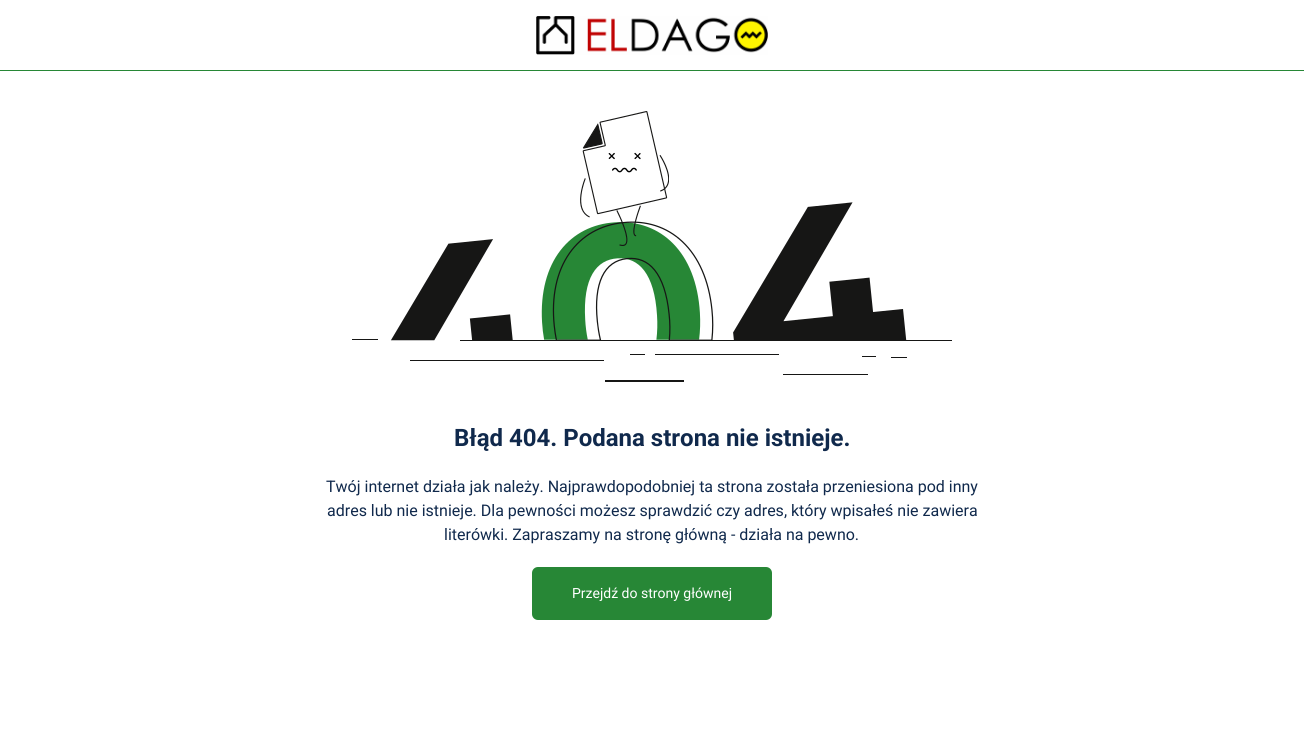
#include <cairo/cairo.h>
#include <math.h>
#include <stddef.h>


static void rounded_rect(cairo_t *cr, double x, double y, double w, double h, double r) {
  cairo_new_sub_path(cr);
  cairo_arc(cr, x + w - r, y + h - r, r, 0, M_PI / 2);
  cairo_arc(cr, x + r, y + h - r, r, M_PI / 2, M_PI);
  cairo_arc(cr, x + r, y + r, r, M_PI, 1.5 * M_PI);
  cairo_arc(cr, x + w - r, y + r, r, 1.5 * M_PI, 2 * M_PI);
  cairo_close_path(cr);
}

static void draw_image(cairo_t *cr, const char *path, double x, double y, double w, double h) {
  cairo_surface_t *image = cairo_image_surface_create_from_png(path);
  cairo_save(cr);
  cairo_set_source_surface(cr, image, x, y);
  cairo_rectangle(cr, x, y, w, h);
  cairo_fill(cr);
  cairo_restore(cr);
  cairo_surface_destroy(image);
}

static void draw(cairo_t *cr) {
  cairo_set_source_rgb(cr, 1, 1, 1);
  cairo_paint(cr);
  draw_image(cr, "images/1.png", 536, 16, 232, 39);
  cairo_set_source_rgb(cr, 39 / 255.0, 135 / 255.0, 54 / 255.0);
  cairo_rectangle(cr, 0, 70, 1304, 1);
  cairo_fill(cr);
  draw_image(cr, "images/2.png", 352, 111, 600, 271);
  rounded_rect(cr, 532, 567, 240, 53, 6);
  cairo_fill(cr);
  cairo_select_font_face(cr, "Roboto", CAIRO_FONT_SLANT_NORMAL, CAIRO_FONT_WEIGHT_BOLD);
  cairo_set_font_size(cr, 24);
  cairo_set_source_rgb(cr, 16 / 255.0, 41 / 255.0, 76 / 255.0);
  cairo_move_to(cr, 454, 446);
  cairo_show_text(cr, "Błąd 404. Podana strona nie istnieje.");
  cairo_select_font_face(cr, "Roboto", CAIRO_FONT_SLANT_NORMAL, CAIRO_FONT_WEIGHT_NORMAL);
  cairo_set_font_size(cr, 16);
  cairo_move_to(cr, 326, 492);
  cairo_show_text(cr, "Twój internet działa jak należy. Najprawdopodobniej ta strona została przeniesiona pod inny");
  cairo_move_to(cr, 327, 516);
  cairo_show_text(cr, "adres lub nie istnieje. Dla pewności możesz sprawdzić czy adres, który wpisałeś nie zawiera");
  cairo_move_to(cr, 444, 540);
  cairo_show_text(cr, "literówki. Zapraszamy na stronę główną - działa na pewno.");
  cairo_set_font_size(cr, 14);
  cairo_set_source_rgb(cr, 1, 1, 1);
  cairo_move_to(cr, 572, 598);
  cairo_show_text(cr, "Przejdź do strony głównej");
}

int main(void) {
  cairo_surface_t *surface = cairo_image_surface_create(CAIRO_FORMAT_RGB24, 1304, 738);
  cairo_t *cr = cairo_create(surface);
  cairo_font_options_t *options = cairo_font_options_create();
  cairo_font_options_set_hint_metrics(options, CAIRO_HINT_METRICS_OFF);
  cairo_font_options_set_hint_style(options, CAIRO_HINT_STYLE_NONE);
  cairo_set_font_options(cr, options);
  cairo_set_miter_limit(cr, 4);
  draw(cr);
  cairo_surface_write_to_png(surface, "out.png");
  cairo_font_options_destroy(options);
  cairo_destroy(cr);
  cairo_surface_destroy(surface);
  return 0;
}
